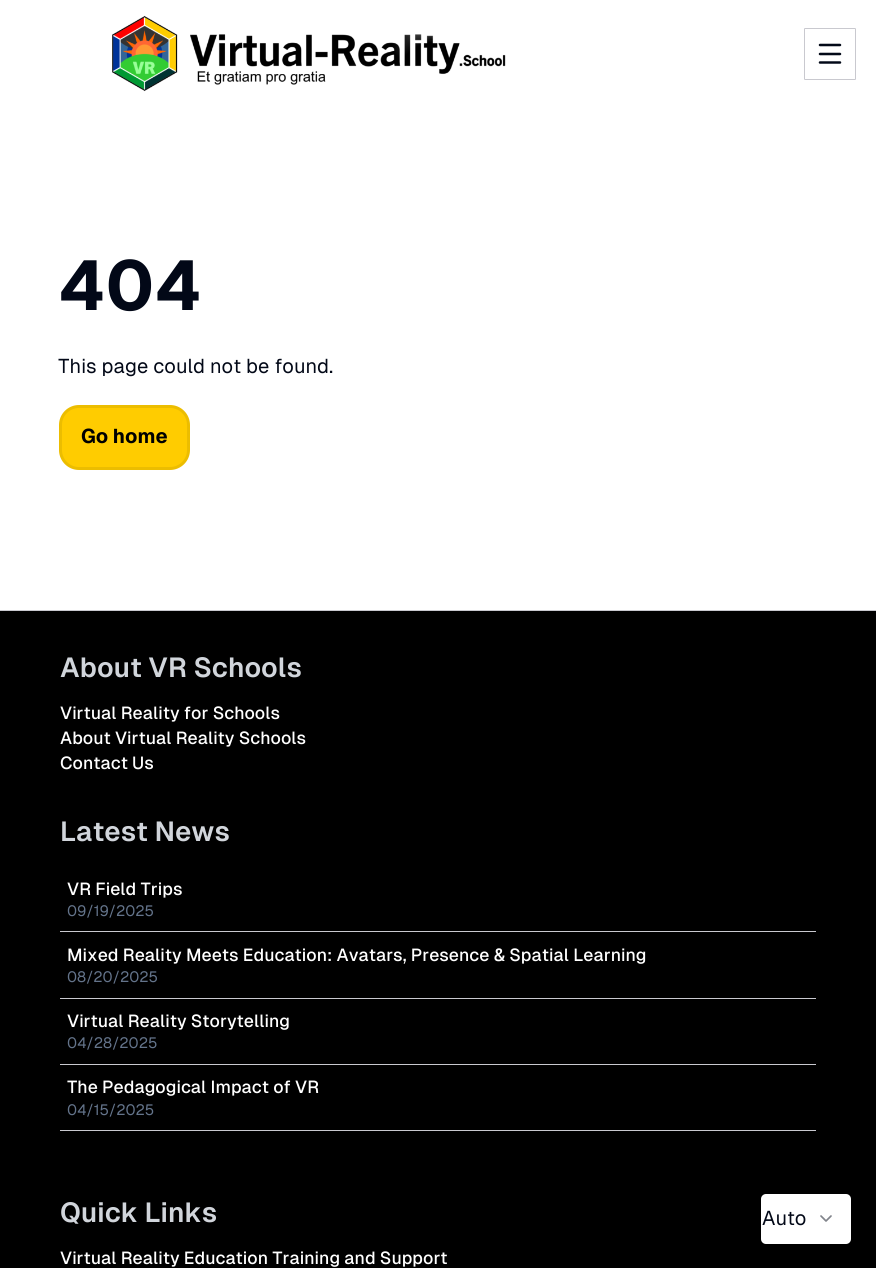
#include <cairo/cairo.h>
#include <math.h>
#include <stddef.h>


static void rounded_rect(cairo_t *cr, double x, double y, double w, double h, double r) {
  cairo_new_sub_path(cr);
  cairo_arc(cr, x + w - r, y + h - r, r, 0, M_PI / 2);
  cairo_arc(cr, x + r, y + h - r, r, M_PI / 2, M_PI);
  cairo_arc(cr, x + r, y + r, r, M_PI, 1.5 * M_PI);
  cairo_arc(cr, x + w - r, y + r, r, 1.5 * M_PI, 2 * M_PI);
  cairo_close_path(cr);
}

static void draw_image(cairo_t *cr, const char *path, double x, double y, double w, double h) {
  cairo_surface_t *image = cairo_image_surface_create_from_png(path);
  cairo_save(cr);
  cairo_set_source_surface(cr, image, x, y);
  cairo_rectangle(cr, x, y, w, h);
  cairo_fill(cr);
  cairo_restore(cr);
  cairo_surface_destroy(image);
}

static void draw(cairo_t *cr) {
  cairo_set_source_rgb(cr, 1, 1, 1);
  cairo_paint(cr);
  draw_image(cr, "images/1.png", 112, 15, 394, 77);
  rounded_rect(cr, 804.5, 28.5, 51, 51, 0.5);
  cairo_set_source_rgb(cr, 201 / 255.0, 201 / 255.0, 207 / 255.0);
  cairo_set_line_width(cr, 1);
  cairo_stroke(cr);
  cairo_new_path(cr);
  cairo_move_to(cr, 820, 45);
  cairo_line_to(cr, 840, 45);
  cairo_move_to(cr, 820, 54);
  cairo_line_to(cr, 840, 54);
  cairo_move_to(cr, 820, 62.5);
  cairo_line_to(cr, 840, 62.5);
  cairo_set_source_rgb(cr, 2 / 255.0, 8 / 255.0, 23 / 255.0);
  cairo_set_line_width(cr, 2.5);
  cairo_set_line_cap(cr, CAIRO_LINE_CAP_ROUND);
  cairo_set_line_join(cr, CAIRO_LINE_JOIN_ROUND);
  cairo_stroke(cr);
  cairo_set_source_rgb(cr, 1, 204 / 255.0, 0);
  rounded_rect(cr, 60.5, 406.5, 128, 62, 18.5);
  cairo_fill_preserve(cr);
  cairo_set_source_rgb(cr, 236 / 255.0, 189 / 255.0, 0);
  cairo_set_line_width(cr, 3);
  cairo_set_line_cap(cr, CAIRO_LINE_CAP_BUTT);
  cairo_set_line_join(cr, CAIRO_LINE_JOIN_MITER);
  cairo_stroke(cr);
  cairo_set_source_rgb(cr, 0, 0, 0);
  cairo_rectangle(cr, 0, 611, 876, 657);
  cairo_fill(cr);
  cairo_set_source_rgb(cr, 201 / 255.0, 201 / 255.0, 207 / 255.0);
  cairo_rectangle(cr, 0, 610, 876, 1);
  cairo_fill(cr);
  cairo_rectangle(cr, 60, 931, 756, 1);
  cairo_fill(cr);
  cairo_rectangle(cr, 60, 998, 756, 1);
  cairo_fill(cr);
  cairo_rectangle(cr, 60, 1064, 756, 1);
  cairo_fill(cr);
  cairo_rectangle(cr, 60, 1130, 756, 1);
  cairo_fill(cr);
  cairo_set_source_rgb(cr, 1, 1, 1);
  rounded_rect(cr, 761, 1194, 90, 50, 5);
  cairo_fill(cr);
  cairo_new_path(cr);
  cairo_move_to(cr, 821, 1216);
  cairo_line_to(cr, 826, 1221);
  cairo_line_to(cr, 831, 1216);
  cairo_set_source_rgb(cr, 129 / 255.0, 132 / 255.0, 139 / 255.0);
  cairo_set_line_width(cr, 1.7);
  cairo_set_line_cap(cr, CAIRO_LINE_CAP_ROUND);
  cairo_set_line_join(cr, CAIRO_LINE_JOIN_ROUND);
  cairo_stroke(cr);
  cairo_select_font_face(cr, "Geist", CAIRO_FONT_SLANT_NORMAL, CAIRO_FONT_WEIGHT_BOLD);
  cairo_set_font_size(cr, 70);
  cairo_set_source_rgb(cr, 2 / 255.0, 8 / 255.0, 23 / 255.0);
  cairo_move_to(cr, 58, 310);
  cairo_show_text(cr, "404");
  cairo_select_font_face(cr, "Geist", CAIRO_FONT_SLANT_NORMAL, CAIRO_FONT_WEIGHT_NORMAL);
  cairo_set_font_size(cr, 20);
  cairo_move_to(cr, 58, 373);
  cairo_show_text(cr, "This page could not be found.");
  cairo_select_font_face(cr, "Geist", CAIRO_FONT_SLANT_NORMAL, CAIRO_FONT_WEIGHT_BOLD);
  cairo_set_source_rgb(cr, 0, 0, 0);
  cairo_move_to(cr, 81, 443);
  cairo_show_text(cr, "Go home");
  cairo_select_font_face(cr, "Geist SemiBold", CAIRO_FONT_SLANT_NORMAL, CAIRO_FONT_WEIGHT_NORMAL);
  cairo_set_font_size(cr, 27.5);
  cairo_set_source_rgb(cr, 209 / 255.0, 213 / 255.0, 219 / 255.0);
  cairo_move_to(cr, 60, 677);
  cairo_show_text(cr, "About VR Schools");
  cairo_select_font_face(cr, "Geist Medium", CAIRO_FONT_SLANT_NORMAL, CAIRO_FONT_WEIGHT_NORMAL);
  cairo_set_font_size(cr, 17.5);
  cairo_set_source_rgb(cr, 1, 1, 1);
  cairo_move_to(cr, 60, 719);
  cairo_show_text(cr, "Virtual Reality for Schools");
  cairo_move_to(cr, 60, 744);
  cairo_show_text(cr, "About Virtual Reality Schools");
  cairo_move_to(cr, 60, 769);
  cairo_show_text(cr, "Contact Us");
  cairo_select_font_face(cr, "Geist SemiBold", CAIRO_FONT_SLANT_NORMAL, CAIRO_FONT_WEIGHT_NORMAL);
  cairo_set_font_size(cr, 27.5);
  cairo_set_source_rgb(cr, 209 / 255.0, 213 / 255.0, 219 / 255.0);
  cairo_move_to(cr, 60, 841);
  cairo_show_text(cr, "Latest News");
  cairo_select_font_face(cr, "Geist Medium", CAIRO_FONT_SLANT_NORMAL, CAIRO_FONT_WEIGHT_NORMAL);
  cairo_set_font_size(cr, 17.5);
  cairo_set_source_rgb(cr, 1, 1, 1);
  cairo_move_to(cr, 67, 895);
  cairo_show_text(cr, "VR Field Trips");
  cairo_select_font_face(cr, "Geist", CAIRO_FONT_SLANT_NORMAL, CAIRO_FONT_WEIGHT_NORMAL);
  cairo_set_font_size(cr, 15);
  cairo_set_source_rgb(cr, 100 / 255.0, 116 / 255.0, 139 / 255.0);
  cairo_move_to(cr, 67, 916);
  cairo_show_text(cr, "09/19/2025");
  cairo_select_font_face(cr, "Geist Medium", CAIRO_FONT_SLANT_NORMAL, CAIRO_FONT_WEIGHT_NORMAL);
  cairo_set_font_size(cr, 17.5);
  cairo_set_source_rgb(cr, 1, 1, 1);
  cairo_move_to(cr, 67, 961);
  cairo_show_text(cr, "Mixed Reality Meets Education: Avatars, Presence & Spatial Learning");
  cairo_select_font_face(cr, "Geist", CAIRO_FONT_SLANT_NORMAL, CAIRO_FONT_WEIGHT_NORMAL);
  cairo_set_font_size(cr, 15);
  cairo_set_source_rgb(cr, 100 / 255.0, 116 / 255.0, 139 / 255.0);
  cairo_move_to(cr, 67, 982);
  cairo_show_text(cr, "08/20/2025");
  cairo_select_font_face(cr, "Geist Medium", CAIRO_FONT_SLANT_NORMAL, CAIRO_FONT_WEIGHT_NORMAL);
  cairo_set_font_size(cr, 17.5);
  cairo_set_source_rgb(cr, 1, 1, 1);
  cairo_move_to(cr, 67, 1027);
  cairo_show_text(cr, "Virtual Reality Storytelling");
  cairo_select_font_face(cr, "Geist", CAIRO_FONT_SLANT_NORMAL, CAIRO_FONT_WEIGHT_NORMAL);
  cairo_set_font_size(cr, 15);
  cairo_set_source_rgb(cr, 100 / 255.0, 116 / 255.0, 139 / 255.0);
  cairo_move_to(cr, 67, 1048);
  cairo_show_text(cr, "04/28/2025");
  cairo_select_font_face(cr, "Geist Medium", CAIRO_FONT_SLANT_NORMAL, CAIRO_FONT_WEIGHT_NORMAL);
  cairo_set_font_size(cr, 17.5);
  cairo_set_source_rgb(cr, 1, 1, 1);
  cairo_move_to(cr, 67, 1093);
  cairo_show_text(cr, "The Pedagogical Impact of VR");
  cairo_select_font_face(cr, "Geist", CAIRO_FONT_SLANT_NORMAL, CAIRO_FONT_WEIGHT_NORMAL);
  cairo_set_font_size(cr, 15);
  cairo_set_source_rgb(cr, 100 / 255.0, 116 / 255.0, 139 / 255.0);
  cairo_move_to(cr, 67, 1115);
  cairo_show_text(cr, "04/15/2025");
  cairo_select_font_face(cr, "Geist SemiBold", CAIRO_FONT_SLANT_NORMAL, CAIRO_FONT_WEIGHT_NORMAL);
  cairo_set_font_size(cr, 27.5);
  cairo_set_source_rgb(cr, 209 / 255.0, 213 / 255.0, 219 / 255.0);
  cairo_move_to(cr, 60, 1222);
  cairo_show_text(cr, "Quick Links");
  cairo_select_font_face(cr, "Geist Medium", CAIRO_FONT_SLANT_NORMAL, CAIRO_FONT_WEIGHT_NORMAL);
  cairo_set_font_size(cr, 17.5);
  cairo_set_source_rgb(cr, 1, 1, 1);
  cairo_move_to(cr, 60, 1264);
  cairo_show_text(cr, "Virtual Reality Education Training and Support");
  cairo_select_font_face(cr, "Geist", CAIRO_FONT_SLANT_NORMAL, CAIRO_FONT_WEIGHT_NORMAL);
  cairo_set_font_size(cr, 20);
  cairo_set_source_rgb(cr, 2 / 255.0, 8 / 255.0, 23 / 255.0);
  cairo_move_to(cr, 762, 1225);
  cairo_show_text(cr, "Auto");
}

int main(void) {
  cairo_surface_t *surface = cairo_image_surface_create(CAIRO_FORMAT_RGB24, 876, 1268);
  cairo_t *cr = cairo_create(surface);
  cairo_font_options_t *options = cairo_font_options_create();
  cairo_font_options_set_hint_metrics(options, CAIRO_HINT_METRICS_OFF);
  cairo_font_options_set_hint_style(options, CAIRO_HINT_STYLE_NONE);
  cairo_set_font_options(cr, options);
  cairo_set_miter_limit(cr, 4);
  draw(cr);
  cairo_surface_write_to_png(surface, "out.png");
  cairo_font_options_destroy(options);
  cairo_destroy(cr);
  cairo_surface_destroy(surface);
  return 0;
}
